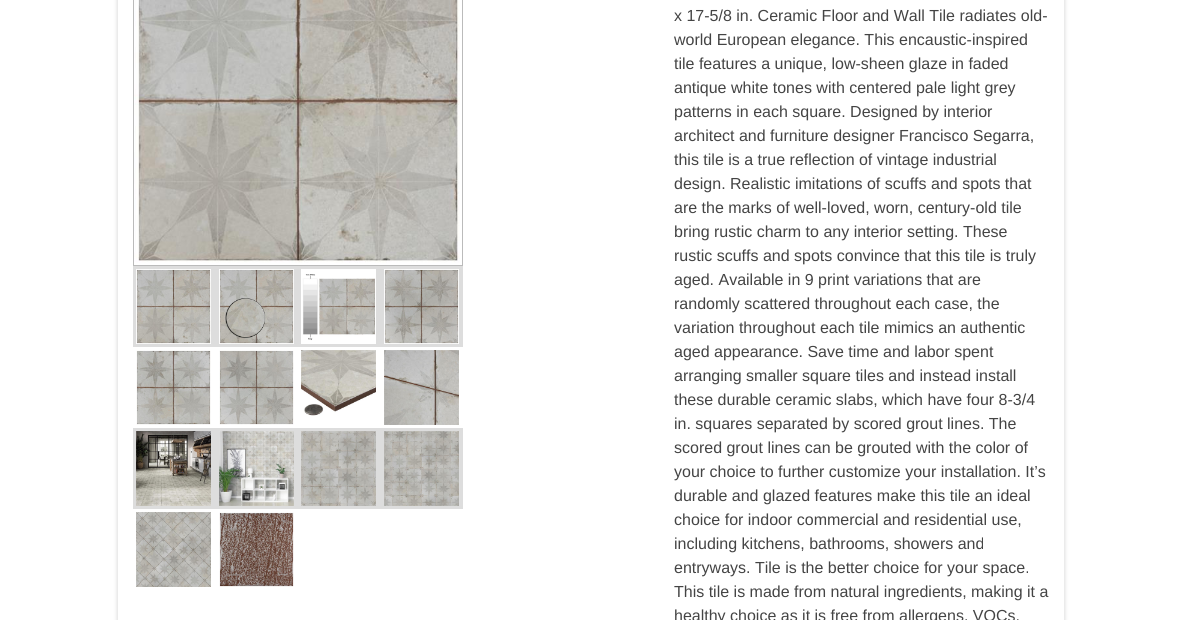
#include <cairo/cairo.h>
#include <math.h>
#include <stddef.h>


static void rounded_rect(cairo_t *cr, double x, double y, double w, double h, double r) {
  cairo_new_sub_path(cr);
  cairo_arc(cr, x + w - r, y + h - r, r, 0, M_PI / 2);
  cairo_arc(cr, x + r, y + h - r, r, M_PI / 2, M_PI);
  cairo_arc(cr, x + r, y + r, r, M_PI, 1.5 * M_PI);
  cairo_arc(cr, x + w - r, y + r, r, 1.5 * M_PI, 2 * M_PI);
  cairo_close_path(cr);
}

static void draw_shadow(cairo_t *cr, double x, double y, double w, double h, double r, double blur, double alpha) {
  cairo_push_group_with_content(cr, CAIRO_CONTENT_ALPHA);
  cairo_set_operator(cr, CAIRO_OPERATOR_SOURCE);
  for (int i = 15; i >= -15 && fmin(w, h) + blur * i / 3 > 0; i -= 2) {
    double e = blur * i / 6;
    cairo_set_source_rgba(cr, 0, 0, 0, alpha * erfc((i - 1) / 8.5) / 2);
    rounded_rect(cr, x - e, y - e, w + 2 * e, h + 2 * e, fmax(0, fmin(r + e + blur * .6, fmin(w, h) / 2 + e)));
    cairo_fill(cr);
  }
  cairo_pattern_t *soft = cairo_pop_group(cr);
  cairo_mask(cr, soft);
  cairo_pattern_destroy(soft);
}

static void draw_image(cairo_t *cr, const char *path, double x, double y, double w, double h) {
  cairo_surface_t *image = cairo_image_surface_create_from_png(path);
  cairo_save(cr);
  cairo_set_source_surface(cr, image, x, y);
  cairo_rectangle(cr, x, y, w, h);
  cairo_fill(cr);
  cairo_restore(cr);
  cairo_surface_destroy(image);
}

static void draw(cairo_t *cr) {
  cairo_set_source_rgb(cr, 1, 1, 1);
  cairo_paint(cr);
  cairo_save(cr);
  cairo_set_fill_rule(cr, CAIRO_FILL_RULE_EVEN_ODD);
  cairo_new_path(cr);
  cairo_move_to(cr, 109, 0);
  cairo_line_to(cr, 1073, 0);
  cairo_line_to(cr, 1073, 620);
  cairo_line_to(cr, 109, 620);
  cairo_close_path(cr);
  cairo_move_to(cr, 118, -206);
  cairo_line_to(cr, 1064, -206);
  cairo_line_to(cr, 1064, 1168);
  cairo_line_to(cr, 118, 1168);
  cairo_close_path(cr);
  cairo_clip(cr);
  cairo_set_source_rgb(cr, 0, 0, 0);
  draw_shadow(cr, 118, -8, 946, 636, 0, 2.5, 0.2);
  cairo_restore(cr);
  cairo_rectangle(cr, 133.5, -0.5, 329, 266);
  cairo_set_source_rgb(cr, 187 / 255.0, 187 / 255.0, 187 / 255.0);
  cairo_set_line_width(cr, 1);
  cairo_stroke(cr);
  draw_image(cr, "images/1.png", 134, 0, 326, 263);
  cairo_set_source_rgb(cr, 221 / 255.0, 221 / 255.0, 221 / 255.0);
  cairo_rectangle(cr, 133, 266, 330, 81);
  cairo_fill(cr);
  draw_image(cr, "images/2.png", 136, 269, 75, 75);
  draw_image(cr, "images/3.png", 219, 269, 75, 75);
  draw_image(cr, "images/4.png", 301, 269, 75, 75);
  draw_image(cr, "images/5.png", 384, 269, 75, 75);
  draw_image(cr, "images/6.png", 136, 350, 75, 75);
  draw_image(cr, "images/7.png", 219, 350, 75, 75);
  draw_image(cr, "images/8.png", 301, 350, 75, 66);
  draw_image(cr, "images/9.png", 384, 350, 75, 75);
  cairo_rectangle(cr, 133, 428, 330, 81);
  cairo_fill(cr);
  draw_image(cr, "images/10.png", 136, 431, 75, 75);
  draw_image(cr, "images/11.png", 219, 431, 75, 75);
  draw_image(cr, "images/12.png", 301, 431, 75, 75);
  draw_image(cr, "images/13.png", 384, 431, 75, 75);
  draw_image(cr, "images/14.png", 136, 512, 75, 75);
  draw_image(cr, "images/15.png", 219, 512, 75, 75);
  cairo_select_font_face(cr, "Liberation Sans", CAIRO_FONT_SLANT_NORMAL, CAIRO_FONT_WEIGHT_NORMAL);
  cairo_set_font_size(cr, 16);
  cairo_set_source_rgb(cr, 68 / 255.0, 68 / 255.0, 68 / 255.0);
  cairo_move_to(cr, 674, 21);
  cairo_show_text(cr, "x 17-5/8 in. Ceramic Floor and Wall Tile radiates old-");
  cairo_move_to(cr, 674, 45);
  cairo_show_text(cr, "world European elegance. This encaustic-inspired");
  cairo_move_to(cr, 674, 69);
  cairo_show_text(cr, "tile features a unique, low-sheen glaze in faded");
  cairo_move_to(cr, 674, 93);
  cairo_show_text(cr, "antique white tones with centered pale light grey");
  cairo_move_to(cr, 674, 117);
  cairo_show_text(cr, "patterns in each square. Designed by interior");
  cairo_move_to(cr, 674, 141);
  cairo_show_text(cr, "architect and furniture designer Francisco Segarra,");
  cairo_move_to(cr, 674, 165);
  cairo_show_text(cr, "this tile is a true reflection of vintage industrial");
  cairo_move_to(cr, 674, 189);
  cairo_show_text(cr, "design. Realistic imitations of scuffs and spots that");
  cairo_move_to(cr, 674, 213);
  cairo_show_text(cr, "are the marks of well-loved, worn, century-old tile");
  cairo_move_to(cr, 674, 237);
  cairo_show_text(cr, "bring rustic charm to any interior setting. These");
  cairo_move_to(cr, 674, 261);
  cairo_show_text(cr, "rustic scuffs and spots convince that this tile is truly");
  cairo_move_to(cr, 674, 285);
  cairo_show_text(cr, "aged. Available in 9 print variations that are");
  cairo_move_to(cr, 674, 309);
  cairo_show_text(cr, "randomly scattered throughout each case, the");
  cairo_move_to(cr, 674, 333);
  cairo_show_text(cr, "variation throughout each tile mimics an authentic");
  cairo_move_to(cr, 674, 357);
  cairo_show_text(cr, "aged appearance. Save time and labor spent");
  cairo_move_to(cr, 674, 381);
  cairo_show_text(cr, "arranging smaller square tiles and instead install");
  cairo_move_to(cr, 674, 405);
  cairo_show_text(cr, "these durable ceramic slabs, which have four 8-3/4");
  cairo_move_to(cr, 674, 429);
  cairo_show_text(cr, "in. squares separated by scored grout lines. The");
  cairo_move_to(cr, 674, 453);
  cairo_show_text(cr, "scored grout lines can be grouted with the color of");
  cairo_move_to(cr, 674, 477);
  cairo_show_text(cr, "your choice to further customize your installation. It’s");
  cairo_move_to(cr, 674, 501);
  cairo_show_text(cr, "durable and glazed features make this tile an ideal");
  cairo_move_to(cr, 674, 525);
  cairo_show_text(cr, "choice for indoor commercial and residential use,");
  cairo_move_to(cr, 674, 549);
  cairo_show_text(cr, "including kitchens, bathrooms, showers and");
  cairo_move_to(cr, 674, 573);
  cairo_show_text(cr, "entryways. Tile is the better choice for your space.");
  cairo_move_to(cr, 674, 597);
  cairo_show_text(cr, "This tile is made from natural ingredients, making it a");
  cairo_move_to(cr, 674, 621);
  cairo_show_text(cr, "healthy choice as it is free from allergens, VOCs,");
}

int main(void) {
  cairo_surface_t *surface = cairo_image_surface_create(CAIRO_FORMAT_RGB24, 1182, 620);
  cairo_t *cr = cairo_create(surface);
  cairo_font_options_t *options = cairo_font_options_create();
  cairo_font_options_set_hint_metrics(options, CAIRO_HINT_METRICS_OFF);
  cairo_font_options_set_hint_style(options, CAIRO_HINT_STYLE_NONE);
  cairo_set_font_options(cr, options);
  cairo_set_miter_limit(cr, 4);
  draw(cr);
  cairo_surface_write_to_png(surface, "out.png");
  cairo_font_options_destroy(options);
  cairo_destroy(cr);
  cairo_surface_destroy(surface);
  return 0;
}
